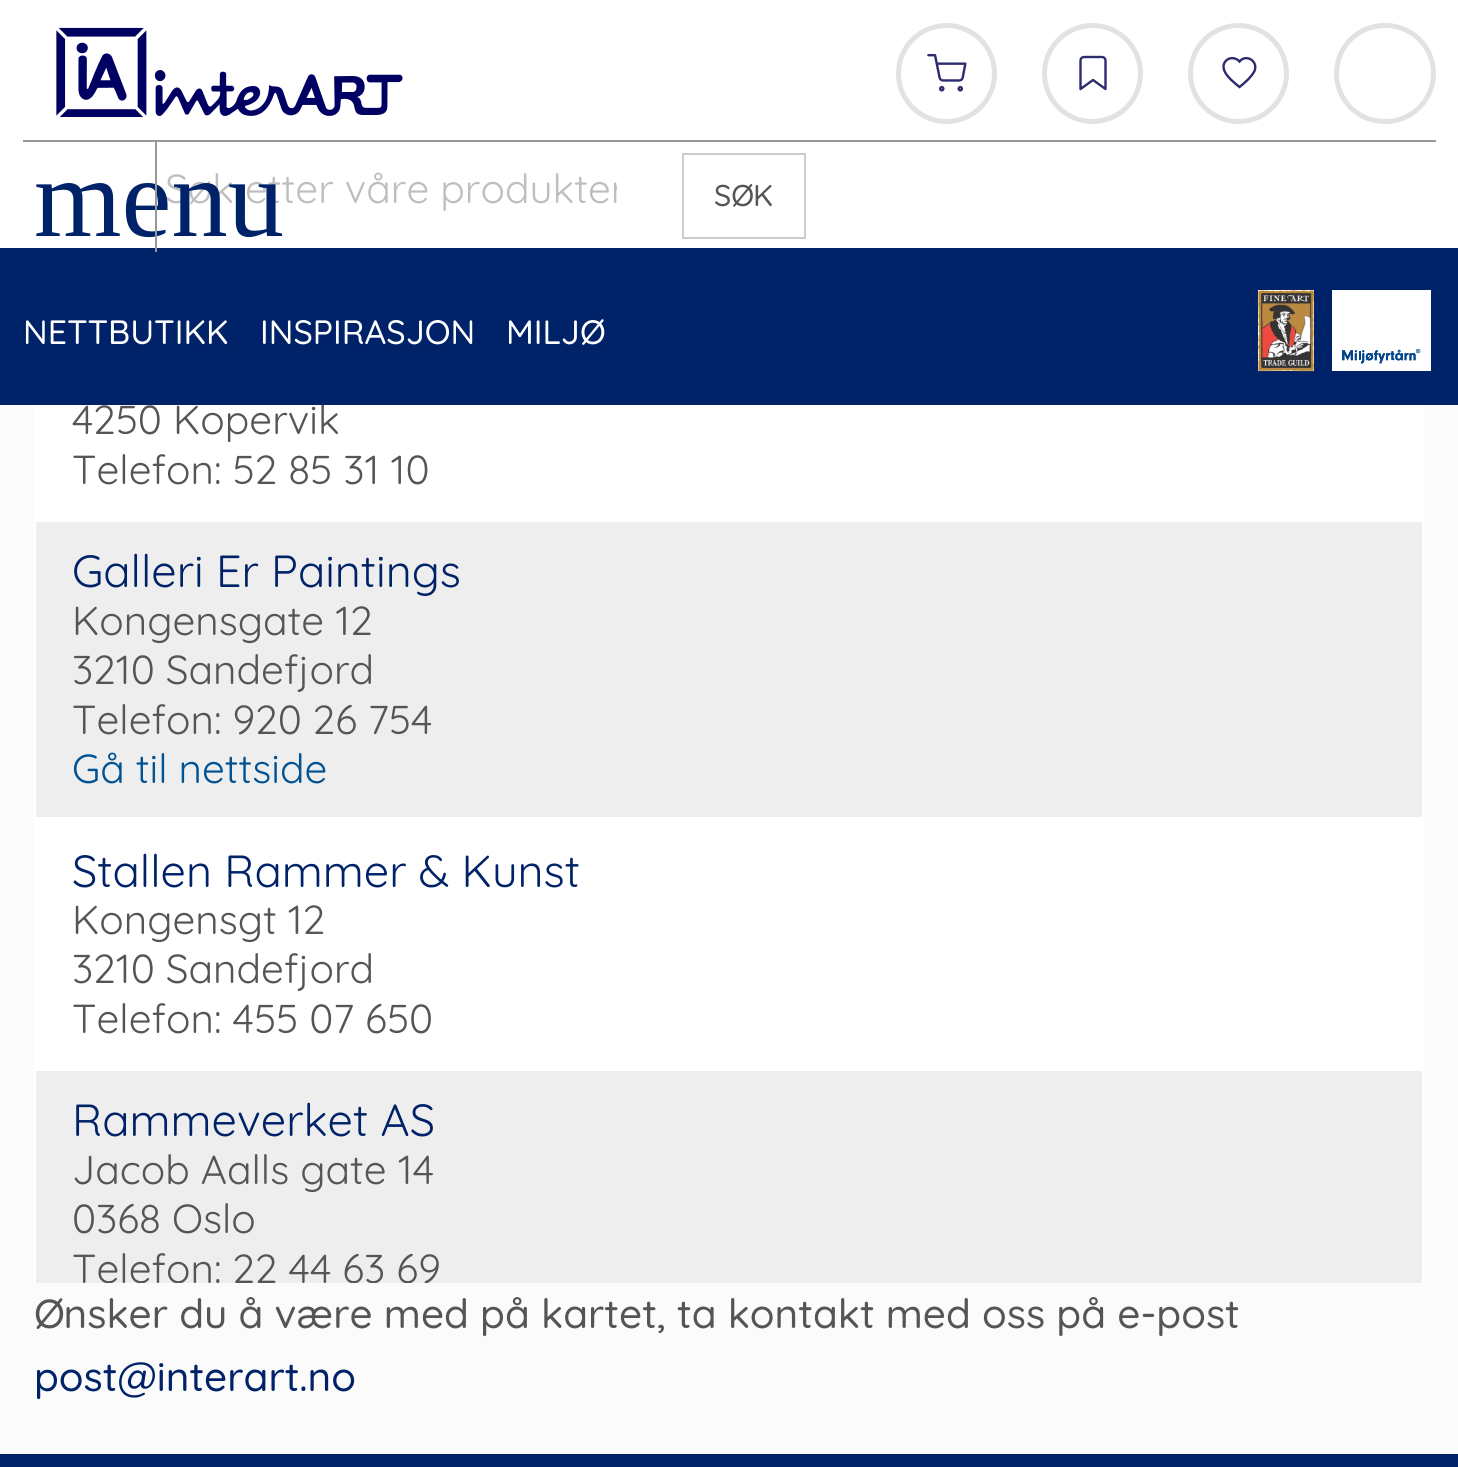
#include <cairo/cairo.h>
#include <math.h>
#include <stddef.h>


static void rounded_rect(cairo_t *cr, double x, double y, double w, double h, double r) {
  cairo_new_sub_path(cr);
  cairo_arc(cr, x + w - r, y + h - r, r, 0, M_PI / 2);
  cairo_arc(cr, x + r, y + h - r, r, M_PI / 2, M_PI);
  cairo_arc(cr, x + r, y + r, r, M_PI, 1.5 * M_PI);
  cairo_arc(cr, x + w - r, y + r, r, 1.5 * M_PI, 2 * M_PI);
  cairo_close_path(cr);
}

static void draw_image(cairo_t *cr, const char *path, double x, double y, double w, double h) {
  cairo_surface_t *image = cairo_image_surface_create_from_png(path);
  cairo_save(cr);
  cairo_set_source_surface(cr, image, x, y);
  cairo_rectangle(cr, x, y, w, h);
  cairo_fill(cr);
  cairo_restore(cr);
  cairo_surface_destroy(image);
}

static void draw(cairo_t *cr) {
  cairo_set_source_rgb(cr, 251 / 255.0, 251 / 255.0, 251 / 255.0);
  cairo_paint(cr);
  cairo_set_source_rgb(cr, 1, 1, 1);
  cairo_rectangle(cr, 0, 0, 1458, 248);
  cairo_fill(cr);
  draw_image(cr, "images/1.png", 56, 27, 347, 90);
  cairo_arc(cr, 946.5, 73.5, 48, 0, 2 * M_PI);
  cairo_set_source_rgb(cr, 226 / 255.0, 226 / 255.0, 226 / 255.0);
  cairo_set_line_width(cr, 5);
  cairo_stroke(cr);
  draw_image(cr, "images/2.png", 927, 54, 40, 38);
  cairo_arc(cr, 1092.5, 73.5, 48, 0, 2 * M_PI);
  cairo_stroke(cr);
  cairo_new_path(cr);
  cairo_move_to(cr, 1105.5, 89);
  cairo_line_to(cr, 1093, 80);
  cairo_line_to(cr, 1080.5, 89);
  cairo_line_to(cr, 1080.5, 60.5);
  cairo_curve_to(cr, 1080.5, 58.5, 1082, 57, 1084, 57);
  cairo_line_to(cr, 1102, 57);
  cairo_curve_to(cr, 1104, 57, 1105.5, 58.5, 1105.5, 60.5);
  cairo_close_path(cr);
  cairo_set_source_rgb(cr, 44 / 255.0, 43 / 255.0, 109 / 255.0);
  cairo_set_line_width(cr, 2.4);
  cairo_set_line_join(cr, CAIRO_LINE_JOIN_ROUND);
  cairo_stroke(cr);
  cairo_arc(cr, 1238.5, 73.5, 48, 0, 2 * M_PI);
  cairo_set_source_rgb(cr, 226 / 255.0, 226 / 255.0, 226 / 255.0);
  cairo_set_line_width(cr, 5);
  cairo_set_line_join(cr, CAIRO_LINE_JOIN_MITER);
  cairo_stroke(cr);
  cairo_new_path(cr);
  cairo_move_to(cr, 1239.5, 87);
  cairo_curve_to(cr, 1234.5, 83, 1227, 77, 1224.5, 71);
  cairo_curve_to(cr, 1220, 61, 1232, 53.5, 1239.5, 61.5);
  cairo_curve_to(cr, 1246, 53.5, 1258.5, 61, 1254.5, 71);
  cairo_curve_to(cr, 1251.5, 77, 1244.5, 83, 1239.5, 87);
  cairo_close_path(cr);
  cairo_set_source_rgb(cr, 44 / 255.0, 43 / 255.0, 109 / 255.0);
  cairo_set_line_width(cr, 2.4);
  cairo_stroke(cr);
  rounded_rect(cr, 1336.5, 25.5, 97, 96, 48);
  cairo_set_source_rgb(cr, 226 / 255.0, 226 / 255.0, 226 / 255.0);
  cairo_set_line_width(cr, 5);
  cairo_stroke(cr);
  cairo_set_source_rgb(cr, 152 / 255.0, 152 / 255.0, 152 / 255.0);
  cairo_rectangle(cr, 23, 140, 1413, 2);
  cairo_fill(cr);
  cairo_rectangle(cr, 683, 154, 122, 84);
  cairo_set_source_rgb(cr, 204 / 255.0, 204 / 255.0, 204 / 255.0);
  cairo_set_line_width(cr, 2);
  cairo_stroke(cr);
  cairo_set_source_rgb(cr, 1, 1, 1);
  cairo_rectangle(cr, 34, 405, 1390, 115);
  cairo_fill(cr);
  cairo_set_source_rgb(cr, 238 / 255.0, 238 / 255.0, 238 / 255.0);
  cairo_rectangle(cr, 35, 521, 1388, 297);
  cairo_fill_preserve(cr);
  cairo_set_source_rgb(cr, 1, 1, 1);
  cairo_stroke(cr);
  cairo_rectangle(cr, 34, 819, 1390, 250);
  cairo_fill(cr);
  cairo_set_source_rgb(cr, 238 / 255.0, 238 / 255.0, 238 / 255.0);
  cairo_rectangle(cr, 36, 1071, 1386, 212);
  cairo_fill(cr);
  cairo_set_source_rgb(cr, 0, 34 / 255.0, 105 / 255.0);
  cairo_rectangle(cr, 0, 1454, 1458, 13);
  cairo_fill(cr);
  cairo_save(cr);
  cairo_rectangle(cr, 167, 162, 450, 52);
  cairo_clip(cr);
  cairo_select_font_face(cr, "Quicksand", CAIRO_FONT_SLANT_NORMAL, CAIRO_FONT_WEIGHT_NORMAL);
  cairo_set_font_size(cr, 40.5);
  cairo_set_source_rgb(cr, 190 / 255.0, 190 / 255.0, 190 / 255.0);
  cairo_move_to(cr, 165, 203);
  cairo_show_text(cr, "Søk etter våre produkter");
  cairo_restore(cr);
  cairo_select_font_face(cr, "Liberation Serif", CAIRO_FONT_SLANT_NORMAL, CAIRO_FONT_WEIGHT_NORMAL);
  cairo_set_font_size(cr, 112.5);
  cairo_move_to(cr, 34, 236);
  cairo_show_text(cr, "menu");
  cairo_select_font_face(cr, "Quicksand Medium", CAIRO_FONT_SLANT_NORMAL, CAIRO_FONT_WEIGHT_NORMAL);
  cairo_set_font_size(cr, 30);
  cairo_set_source_rgb(cr, 85 / 255.0, 85 / 255.0, 85 / 255.0);
  cairo_move_to(cr, 714, 206);
  cairo_show_text(cr, "SØK");
  cairo_select_font_face(cr, "Quicksand", CAIRO_FONT_SLANT_NORMAL, CAIRO_FONT_WEIGHT_NORMAL);
  cairo_set_font_size(cr, 40.5);
  cairo_move_to(cr, 72, 434);
  cairo_show_text(cr, "4250 Kopervik");
  cairo_set_source_rgb(cr, 0, 34 / 255.0, 105 / 255.0);
  cairo_rectangle(cr, 0, 248, 1458, 157);
  cairo_fill(cr);
  cairo_set_source_rgb(cr, 152 / 255.0, 152 / 255.0, 152 / 255.0);
  cairo_rectangle(cr, 155, 140, 2, 112);
  cairo_fill(cr);
  cairo_set_source_rgb(cr, 1, 1, 1);
  cairo_rectangle(cr, 1258, 290, 56, 81);
  cairo_fill(cr);
  draw_image(cr, "images/3.png", 1257, 290, 57, 82);
  cairo_rectangle(cr, 1332, 290, 99, 81);
  cairo_fill(cr);
  draw_image(cr, "images/4.png", 1342, 348, 79, 16);
  cairo_select_font_face(cr, "Quicksand Medium", CAIRO_FONT_SLANT_NORMAL, CAIRO_FONT_WEIGHT_NORMAL);
  cairo_set_font_size(cr, 33.75);
  cairo_move_to(cr, 506, 344);
  cairo_show_text(cr, "MILJØ");
  cairo_move_to(cr, 260, 344);
  cairo_show_text(cr, "INSPIRASJON");
  cairo_move_to(cr, 23, 344);
  cairo_show_text(cr, "NETTBUTIKK");
  cairo_select_font_face(cr, "Quicksand", CAIRO_FONT_SLANT_NORMAL, CAIRO_FONT_WEIGHT_NORMAL);
  cairo_set_font_size(cr, 40.5);
  cairo_set_source_rgb(cr, 85 / 255.0, 85 / 255.0, 85 / 255.0);
  cairo_move_to(cr, 72, 484);
  cairo_show_text(cr, "Telefon: 52 85 31 10");
  cairo_set_font_size(cr, 45);
  cairo_set_source_rgb(cr, 0, 34 / 255.0, 105 / 255.0);
  cairo_move_to(cr, 72, 587);
  cairo_show_text(cr, "Galleri Er Paintings");
  cairo_set_font_size(cr, 40.5);
  cairo_set_source_rgb(cr, 85 / 255.0, 85 / 255.0, 85 / 255.0);
  cairo_move_to(cr, 72, 635);
  cairo_show_text(cr, "Kongensgate 12");
  cairo_move_to(cr, 72, 684);
  cairo_show_text(cr, "3210 Sandefjord");
  cairo_move_to(cr, 72, 734);
  cairo_show_text(cr, "Telefon: 920 26 754");
  cairo_set_source_rgb(cr, 0, 82 / 255.0, 147 / 255.0);
  cairo_move_to(cr, 72, 783);
  cairo_show_text(cr, "Gå til nettside");
  cairo_set_font_size(cr, 45);
  cairo_set_source_rgb(cr, 0, 34 / 255.0, 105 / 255.0);
  cairo_move_to(cr, 72, 887);
  cairo_show_text(cr, "Stallen Rammer & Kunst");
  cairo_set_font_size(cr, 40.5);
  cairo_set_source_rgb(cr, 85 / 255.0, 85 / 255.0, 85 / 255.0);
  cairo_move_to(cr, 72, 934);
  cairo_show_text(cr, "Kongensgt 12");
  cairo_move_to(cr, 72, 983);
  cairo_show_text(cr, "3210 Sandefjord");
  cairo_move_to(cr, 72, 1033);
  cairo_show_text(cr, "Telefon: 455 07 650");
  cairo_select_font_face(cr, "Quicksand Medium", CAIRO_FONT_SLANT_NORMAL, CAIRO_FONT_WEIGHT_NORMAL);
  cairo_move_to(cr, 34, 1328);
  cairo_show_text(cr, "Ønsker du å være med på kartet, ta kontakt med oss på e-post");
  cairo_set_source_rgb(cr, 0, 34 / 255.0, 105 / 255.0);
  cairo_move_to(cr, 34, 1391);
  cairo_show_text(cr, "post@interart.no");
  cairo_save(cr);
  cairo_rectangle(cr, 34, 270, 1390, 1013);
  cairo_clip(cr);
  cairo_rectangle(cr, 35, 1070, 1388, 297);
  cairo_set_source_rgb(cr, 1, 1, 1);
  cairo_stroke(cr);
  cairo_select_font_face(cr, "Quicksand", CAIRO_FONT_SLANT_NORMAL, CAIRO_FONT_WEIGHT_NORMAL);
  cairo_set_source_rgb(cr, 85 / 255.0, 85 / 255.0, 85 / 255.0);
  cairo_move_to(cr, 72, 1283);
  cairo_show_text(cr, "Telefon: 22 44 63 69");
  cairo_restore(cr);
  cairo_select_font_face(cr, "Quicksand", CAIRO_FONT_SLANT_NORMAL, CAIRO_FONT_WEIGHT_NORMAL);
  cairo_set_source_rgb(cr, 85 / 255.0, 85 / 255.0, 85 / 255.0);
  cairo_move_to(cr, 72, 1233);
  cairo_show_text(cr, "0368 Oslo");
  cairo_move_to(cr, 72, 1184);
  cairo_show_text(cr, "Jacob Aalls gate 14");
  cairo_set_font_size(cr, 45);
  cairo_set_source_rgb(cr, 0, 34 / 255.0, 105 / 255.0);
  cairo_move_to(cr, 72, 1136);
  cairo_show_text(cr, "Rammeverket AS");
}

int main(void) {
  cairo_surface_t *surface = cairo_image_surface_create(CAIRO_FORMAT_RGB24, 1458, 1467);
  cairo_t *cr = cairo_create(surface);
  cairo_font_options_t *options = cairo_font_options_create();
  cairo_font_options_set_hint_metrics(options, CAIRO_HINT_METRICS_OFF);
  cairo_font_options_set_hint_style(options, CAIRO_HINT_STYLE_NONE);
  cairo_set_font_options(cr, options);
  cairo_set_miter_limit(cr, 4);
  draw(cr);
  cairo_surface_write_to_png(surface, "out.png");
  cairo_font_options_destroy(options);
  cairo_destroy(cr);
  cairo_surface_destroy(surface);
  return 0;
}
